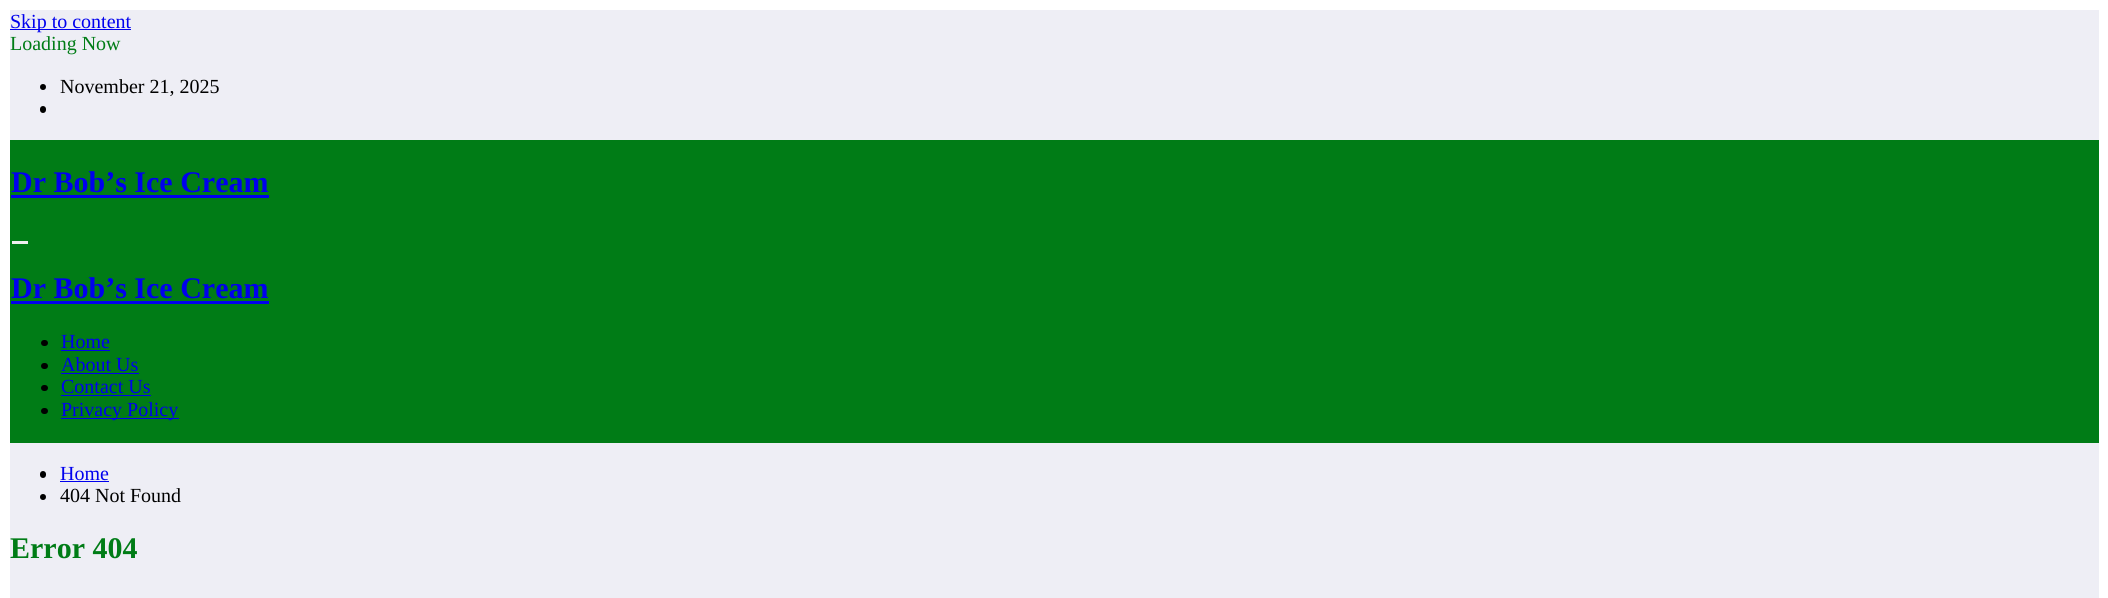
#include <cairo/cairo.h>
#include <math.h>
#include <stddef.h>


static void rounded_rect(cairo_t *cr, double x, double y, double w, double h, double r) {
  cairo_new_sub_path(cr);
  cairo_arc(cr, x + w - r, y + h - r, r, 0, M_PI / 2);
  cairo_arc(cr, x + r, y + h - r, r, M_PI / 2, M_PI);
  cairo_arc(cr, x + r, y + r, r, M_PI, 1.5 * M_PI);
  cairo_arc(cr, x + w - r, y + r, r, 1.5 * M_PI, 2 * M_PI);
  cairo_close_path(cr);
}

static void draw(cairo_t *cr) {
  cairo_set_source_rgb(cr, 1, 1, 1);
  cairo_paint(cr);
  cairo_set_source_rgb(cr, 238 / 255.0, 238 / 255.0, 245 / 255.0);
  cairo_rectangle(cr, 10, 10, 2089, 588);
  cairo_fill(cr);
  cairo_set_source_rgb(cr, 0, 0, 238 / 255.0);
  cairo_rectangle(cr, 10, 29, 121, 1);
  cairo_fill(cr);
  cairo_set_source_rgb(cr, 0, 0, 0);
  cairo_arc(cr, 43, 87, 3, 0, 2 * M_PI);
  cairo_fill(cr);
  rounded_rect(cr, 40, 106, 6, 7, 3);
  cairo_fill(cr);
  cairo_set_source_rgb(cr, 0, 124 / 255.0, 22 / 255.0);
  cairo_rectangle(cr, 10, 140, 2089, 303);
  cairo_fill(cr);
  cairo_set_source_rgb(cr, 0, 0, 238 / 255.0);
  cairo_rectangle(cr, 11, 195, 258, 3);
  cairo_fill(cr);
  cairo_set_source_rgb(cr, 239 / 255.0, 239 / 255.0, 239 / 255.0);
  cairo_rectangle(cr, 11.5, 240.5, 17, 4);
  cairo_fill_preserve(cr);
  cairo_set_source_rgb(cr, 0, 124 / 255.0, 22 / 255.0);
  cairo_set_line_width(cr, 1);
  cairo_stroke(cr);
  cairo_set_source_rgb(cr, 0, 0, 238 / 255.0);
  cairo_rectangle(cr, 11, 301, 258, 3);
  cairo_fill(cr);
  cairo_set_source_rgb(cr, 0, 0, 0);
  rounded_rect(cr, 41, 340, 7, 6, 3);
  cairo_fill(cr);
  cairo_set_source_rgb(cr, 0, 0, 238 / 255.0);
  cairo_rectangle(cr, 61, 350, 49, 1);
  cairo_fill(cr);
  cairo_set_source_rgb(cr, 0, 0, 0);
  rounded_rect(cr, 41, 363, 7, 6, 3);
  cairo_fill(cr);
  cairo_set_source_rgb(cr, 0, 0, 238 / 255.0);
  cairo_rectangle(cr, 61, 373, 78, 1);
  cairo_fill(cr);
  cairo_set_source_rgb(cr, 0, 0, 0);
  rounded_rect(cr, 41, 385, 7, 6, 3);
  cairo_fill(cr);
  cairo_set_source_rgb(cr, 0, 0, 238 / 255.0);
  cairo_rectangle(cr, 61, 395, 90, 1);
  cairo_fill(cr);
  cairo_set_source_rgb(cr, 0, 0, 0);
  rounded_rect(cr, 41, 408, 7, 6, 3);
  cairo_fill(cr);
  cairo_set_source_rgb(cr, 0, 0, 238 / 255.0);
  cairo_rectangle(cr, 61, 418, 118, 1);
  cairo_fill(cr);
  cairo_set_source_rgb(cr, 0, 0, 0);
  rounded_rect(cr, 40, 471, 6, 7, 3);
  cairo_fill(cr);
  cairo_set_source_rgb(cr, 0, 0, 238 / 255.0);
  cairo_rectangle(cr, 60, 481, 49, 1);
  cairo_fill(cr);
  cairo_set_source_rgb(cr, 0, 0, 0);
  cairo_arc(cr, 43, 497, 3, 0, 2 * M_PI);
  cairo_fill(cr);
  cairo_select_font_face(cr, "Liberation Serif", CAIRO_FONT_SLANT_NORMAL, CAIRO_FONT_WEIGHT_NORMAL);
  cairo_set_font_size(cr, 20);
  cairo_set_source_rgb(cr, 0, 0, 238 / 255.0);
  cairo_move_to(cr, 10, 28);
  cairo_show_text(cr, "Skip to content");
  cairo_set_source_rgb(cr, 0, 124 / 255.0, 22 / 255.0);
  cairo_move_to(cr, 10, 50);
  cairo_show_text(cr, "Loading Now");
  cairo_set_source_rgb(cr, 0, 0, 0);
  cairo_move_to(cr, 60, 93);
  cairo_show_text(cr, "November 21, 2025");
  cairo_select_font_face(cr, "Liberation Serif", CAIRO_FONT_SLANT_NORMAL, CAIRO_FONT_WEIGHT_BOLD);
  cairo_set_font_size(cr, 30);
  cairo_set_source_rgb(cr, 0, 0, 238 / 255.0);
  cairo_move_to(cr, 11, 192);
  cairo_show_text(cr, "Dr Bob’s Ice Cream");
  cairo_move_to(cr, 11, 298);
  cairo_show_text(cr, "Dr Bob’s Ice Cream");
  cairo_select_font_face(cr, "Liberation Serif", CAIRO_FONT_SLANT_NORMAL, CAIRO_FONT_WEIGHT_NORMAL);
  cairo_set_font_size(cr, 20);
  cairo_move_to(cr, 61, 348);
  cairo_show_text(cr, "Home");
  cairo_move_to(cr, 61, 371);
  cairo_show_text(cr, "About Us");
  cairo_move_to(cr, 61, 393);
  cairo_show_text(cr, "Contact Us");
  cairo_move_to(cr, 61, 416);
  cairo_show_text(cr, "Privacy Policy");
  cairo_move_to(cr, 60, 480);
  cairo_show_text(cr, "Home");
  cairo_set_source_rgb(cr, 0, 0, 0);
  cairo_move_to(cr, 60, 502);
  cairo_show_text(cr, "404 Not Found");
  cairo_select_font_face(cr, "Liberation Serif", CAIRO_FONT_SLANT_NORMAL, CAIRO_FONT_WEIGHT_BOLD);
  cairo_set_font_size(cr, 30);
  cairo_set_source_rgb(cr, 0, 124 / 255.0, 22 / 255.0);
  cairo_move_to(cr, 10, 558);
  cairo_show_text(cr, "Error 404");
}

int main(void) {
  cairo_surface_t *surface = cairo_image_surface_create(CAIRO_FORMAT_RGB24, 2108, 598);
  cairo_t *cr = cairo_create(surface);
  cairo_font_options_t *options = cairo_font_options_create();
  cairo_font_options_set_hint_metrics(options, CAIRO_HINT_METRICS_OFF);
  cairo_font_options_set_hint_style(options, CAIRO_HINT_STYLE_NONE);
  cairo_set_font_options(cr, options);
  cairo_set_miter_limit(cr, 4);
  draw(cr);
  cairo_surface_write_to_png(surface, "out.png");
  cairo_font_options_destroy(options);
  cairo_destroy(cr);
  cairo_surface_destroy(surface);
  return 0;
}
